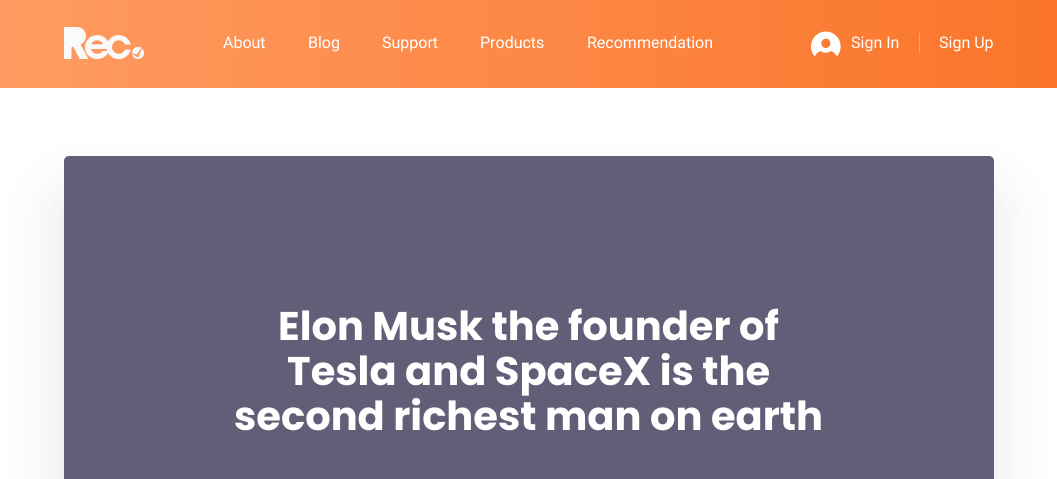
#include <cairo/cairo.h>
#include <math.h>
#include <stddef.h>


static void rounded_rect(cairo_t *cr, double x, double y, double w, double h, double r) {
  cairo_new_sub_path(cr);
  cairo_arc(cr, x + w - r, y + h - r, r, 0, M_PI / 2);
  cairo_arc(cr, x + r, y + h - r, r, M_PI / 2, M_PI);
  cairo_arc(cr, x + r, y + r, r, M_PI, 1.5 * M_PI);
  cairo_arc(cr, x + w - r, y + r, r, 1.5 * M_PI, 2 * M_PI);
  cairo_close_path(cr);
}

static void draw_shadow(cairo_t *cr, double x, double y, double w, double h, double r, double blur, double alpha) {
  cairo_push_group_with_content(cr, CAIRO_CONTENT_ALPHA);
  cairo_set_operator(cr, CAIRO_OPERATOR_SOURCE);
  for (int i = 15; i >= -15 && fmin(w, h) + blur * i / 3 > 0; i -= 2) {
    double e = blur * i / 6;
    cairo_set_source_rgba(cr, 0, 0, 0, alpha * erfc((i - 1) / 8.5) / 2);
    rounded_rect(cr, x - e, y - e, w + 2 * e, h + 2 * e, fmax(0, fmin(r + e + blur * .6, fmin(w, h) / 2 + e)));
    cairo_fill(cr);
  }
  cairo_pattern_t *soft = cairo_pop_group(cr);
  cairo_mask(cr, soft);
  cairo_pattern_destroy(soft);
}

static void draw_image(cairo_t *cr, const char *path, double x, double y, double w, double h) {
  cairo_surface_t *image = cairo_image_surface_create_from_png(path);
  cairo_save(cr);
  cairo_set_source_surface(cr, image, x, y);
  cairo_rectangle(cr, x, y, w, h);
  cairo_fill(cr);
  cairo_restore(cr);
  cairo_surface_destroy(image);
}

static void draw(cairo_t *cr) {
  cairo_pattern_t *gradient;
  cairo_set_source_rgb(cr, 1, 1, 1);
  cairo_paint(cr);
  gradient = cairo_pattern_create_linear(1057, 44, 0, 44);
  cairo_pattern_add_color_stop_rgba(gradient, 0, 250 / 255.0, 117 / 255.0, 41 / 255.0, 1);
  cairo_pattern_add_color_stop_rgba(gradient, 1, 1, 155 / 255.0, 98 / 255.0, 1);
  cairo_set_source(cr, gradient);
  cairo_pattern_destroy(gradient);
  cairo_rectangle(cr, 0, 0, 1057, 88);
  cairo_fill(cr);
  draw_image(cr, "images/1.png", 64, 27, 80, 32);
  draw_image(cr, "images/2.png", 811, 31, 30, 26);
  cairo_set_source_rgb(cr, 252 / 255.0, 162 / 255.0, 110 / 255.0);
  cairo_rectangle(cr, 919, 33, 1, 20);
  cairo_fill(cr);
  cairo_set_source_rgb(cr, 0, 0, 0);
  draw_shadow(cr, 64, 198, 930, 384, 5, 32.5, 0.1);
  cairo_set_source_rgb(cr, 98 / 255.0, 94 / 255.0, 119 / 255.0);
  rounded_rect(cr, 64, 156, 930, 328, 5);
  cairo_fill(cr);
  cairo_select_font_face(cr, "Roboto", CAIRO_FONT_SLANT_NORMAL, CAIRO_FONT_WEIGHT_NORMAL);
  cairo_set_font_size(cr, 16);
  cairo_set_source_rgb(cr, 1, 1, 1);
  cairo_move_to(cr, 223, 48);
  cairo_show_text(cr, "About");
  cairo_move_to(cr, 308, 48);
  cairo_show_text(cr, "Blog");
  cairo_move_to(cr, 382, 48);
  cairo_show_text(cr, "Support");
  cairo_move_to(cr, 480, 48);
  cairo_show_text(cr, "Products");
  cairo_move_to(cr, 587, 48);
  cairo_show_text(cr, "Recommendation");
  cairo_move_to(cr, 851, 48);
  cairo_show_text(cr, "Sign In");
  cairo_move_to(cr, 939, 48);
  cairo_show_text(cr, "Sign Up");
  cairo_select_font_face(cr, "Poppins", CAIRO_FONT_SLANT_NORMAL, CAIRO_FONT_WEIGHT_BOLD);
  cairo_set_font_size(cr, 40);
  cairo_move_to(cr, 278, 340);
  cairo_show_text(cr, "Elon Musk the founder of");
  cairo_move_to(cr, 287, 385);
  cairo_show_text(cr, "Tesla and SpaceX is the");
  cairo_move_to(cr, 234, 430);
  cairo_show_text(cr, "second richest man on earth");
}

int main(void) {
  cairo_surface_t *surface = cairo_image_surface_create(CAIRO_FORMAT_RGB24, 1057, 479);
  cairo_t *cr = cairo_create(surface);
  cairo_font_options_t *options = cairo_font_options_create();
  cairo_font_options_set_hint_metrics(options, CAIRO_HINT_METRICS_OFF);
  cairo_font_options_set_hint_style(options, CAIRO_HINT_STYLE_NONE);
  cairo_set_font_options(cr, options);
  cairo_set_miter_limit(cr, 4);
  draw(cr);
  cairo_surface_write_to_png(surface, "out.png");
  cairo_font_options_destroy(options);
  cairo_destroy(cr);
  cairo_surface_destroy(surface);
  return 0;
}
